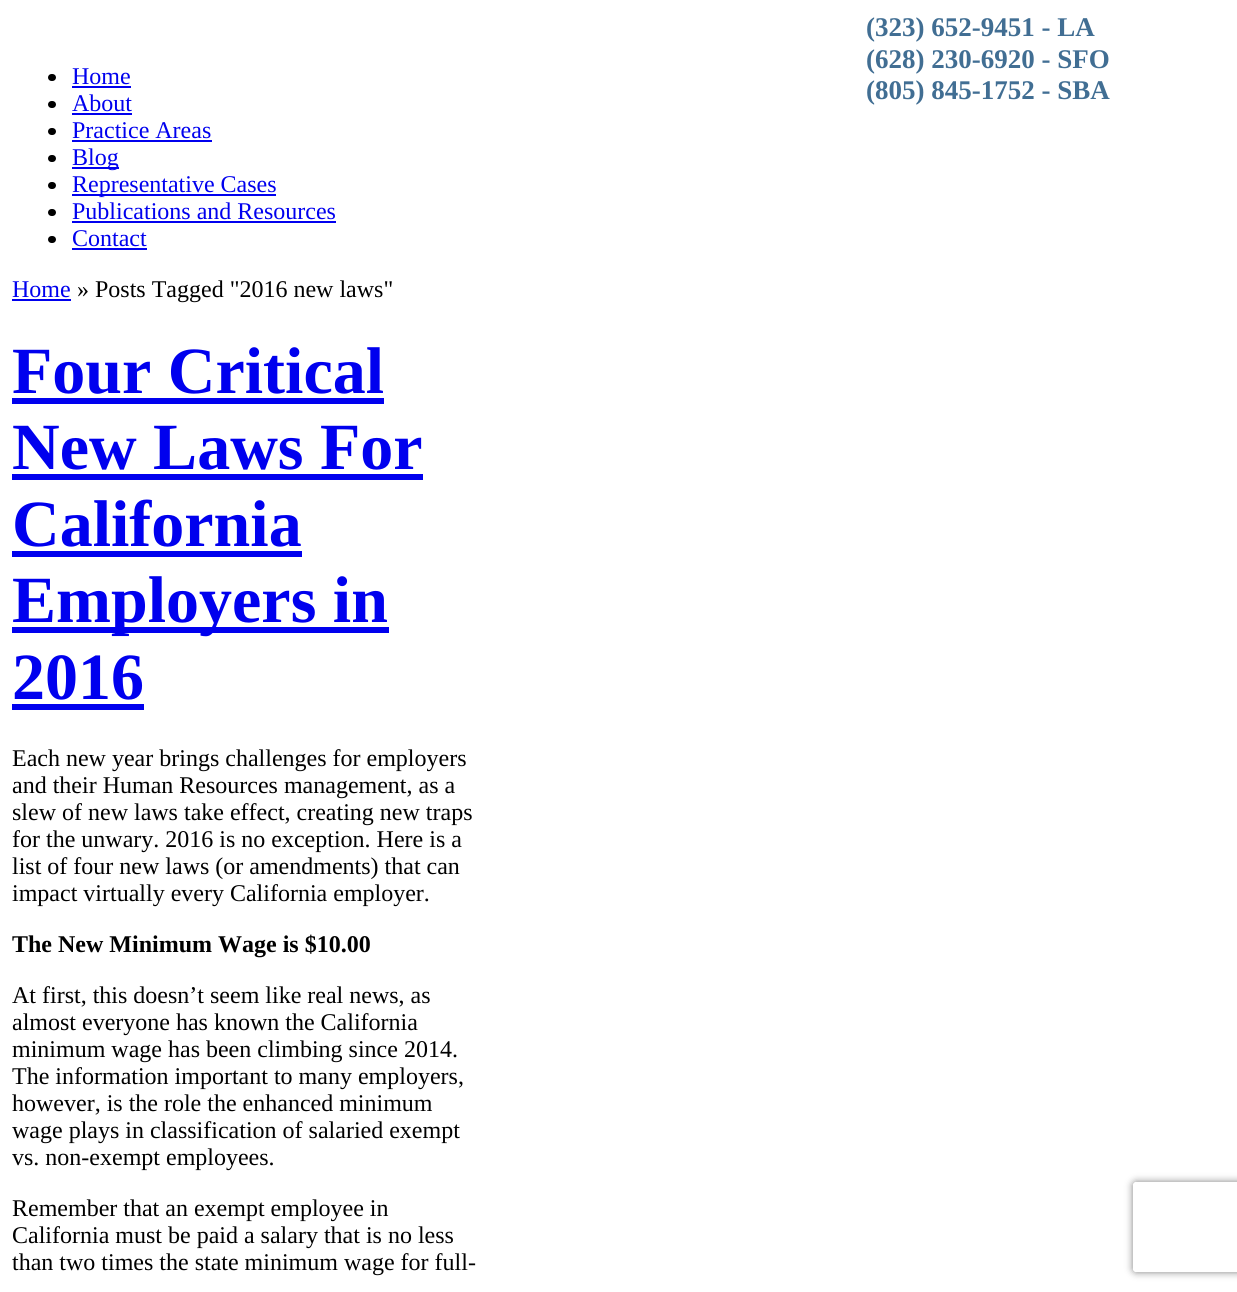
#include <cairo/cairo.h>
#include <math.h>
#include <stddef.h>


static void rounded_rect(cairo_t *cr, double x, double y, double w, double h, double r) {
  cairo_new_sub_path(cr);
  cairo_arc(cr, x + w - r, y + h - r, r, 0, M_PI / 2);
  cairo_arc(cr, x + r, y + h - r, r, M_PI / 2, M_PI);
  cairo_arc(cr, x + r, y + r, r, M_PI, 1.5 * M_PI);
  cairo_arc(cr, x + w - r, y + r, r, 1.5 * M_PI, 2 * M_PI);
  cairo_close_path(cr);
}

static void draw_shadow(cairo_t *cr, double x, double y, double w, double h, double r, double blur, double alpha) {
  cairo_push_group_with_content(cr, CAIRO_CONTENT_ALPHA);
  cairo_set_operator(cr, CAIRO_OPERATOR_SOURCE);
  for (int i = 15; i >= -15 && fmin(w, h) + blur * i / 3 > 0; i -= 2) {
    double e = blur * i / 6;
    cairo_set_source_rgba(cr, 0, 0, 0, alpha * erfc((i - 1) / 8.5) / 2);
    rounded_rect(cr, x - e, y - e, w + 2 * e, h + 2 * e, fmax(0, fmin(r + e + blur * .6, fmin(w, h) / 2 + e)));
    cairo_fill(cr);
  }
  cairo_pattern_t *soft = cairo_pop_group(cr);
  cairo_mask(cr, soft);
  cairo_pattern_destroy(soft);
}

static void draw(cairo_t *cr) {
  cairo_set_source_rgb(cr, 1, 1, 1);
  cairo_paint(cr);
  cairo_set_source_rgb(cr, 0, 0, 0);
  rounded_rect(cr, 48, 74, 8, 7, 3.5);
  cairo_fill(cr);
  cairo_set_source_rgb(cr, 0, 0, 238 / 255.0);
  cairo_rectangle(cr, 72, 86, 59, 2);
  cairo_fill(cr);
  cairo_set_source_rgb(cr, 0, 0, 0);
  rounded_rect(cr, 48, 101, 8, 7, 3.5);
  cairo_fill(cr);
  cairo_set_source_rgb(cr, 0, 0, 238 / 255.0);
  cairo_rectangle(cr, 72, 113, 60, 2);
  cairo_fill(cr);
  cairo_set_source_rgb(cr, 0, 0, 0);
  rounded_rect(cr, 48, 128, 8, 7, 3.5);
  cairo_fill(cr);
  cairo_set_source_rgb(cr, 0, 0, 238 / 255.0);
  cairo_rectangle(cr, 72, 140, 140, 2);
  cairo_fill(cr);
  cairo_set_source_rgb(cr, 0, 0, 0);
  rounded_rect(cr, 48, 155, 8, 7, 3.5);
  cairo_fill(cr);
  cairo_set_source_rgb(cr, 0, 0, 238 / 255.0);
  cairo_rectangle(cr, 72, 167, 47, 2);
  cairo_fill(cr);
  cairo_set_source_rgb(cr, 0, 0, 0);
  rounded_rect(cr, 48, 182, 8, 7, 3.5);
  cairo_fill(cr);
  cairo_set_source_rgb(cr, 0, 0, 238 / 255.0);
  cairo_rectangle(cr, 72, 194, 204, 2);
  cairo_fill(cr);
  cairo_set_source_rgb(cr, 0, 0, 0);
  rounded_rect(cr, 48, 209, 8, 7, 3.5);
  cairo_fill(cr);
  cairo_set_source_rgb(cr, 0, 0, 238 / 255.0);
  cairo_rectangle(cr, 72, 221, 264, 2);
  cairo_fill(cr);
  cairo_set_source_rgb(cr, 0, 0, 0);
  rounded_rect(cr, 48, 236, 8, 7, 3.5);
  cairo_fill(cr);
  cairo_set_source_rgb(cr, 0, 0, 238 / 255.0);
  cairo_rectangle(cr, 72, 248, 75, 2);
  cairo_fill(cr);
  cairo_rectangle(cr, 12, 299, 59, 2);
  cairo_fill(cr);
  cairo_rectangle(cr, 12, 398, 372, 6);
  cairo_fill(cr);
  cairo_rectangle(cr, 12, 474, 411, 6);
  cairo_fill(cr);
  cairo_rectangle(cr, 12, 551, 290, 6);
  cairo_fill(cr);
  cairo_rectangle(cr, 12, 627, 377, 6);
  cairo_fill(cr);
  cairo_rectangle(cr, 12, 704, 132, 6);
  cairo_fill(cr);
  cairo_save(cr);
  cairo_set_fill_rule(cr, CAIRO_FILL_RULE_EVEN_ODD);
  cairo_new_path(cr);
  cairo_move_to(cr, 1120, 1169);
  cairo_line_to(cr, 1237, 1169);
  cairo_line_to(cr, 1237, 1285);
  cairo_line_to(cr, 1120, 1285);
  cairo_close_path(cr);
  cairo_move_to(cr, 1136, 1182);
  cairo_line_to(cr, 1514, 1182);
  cairo_curve_to(cr, 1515.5, 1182, 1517, 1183.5, 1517, 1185);
  cairo_line_to(cr, 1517, 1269);
  cairo_curve_to(cr, 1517, 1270.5, 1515.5, 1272, 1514, 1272);
  cairo_line_to(cr, 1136, 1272);
  cairo_curve_to(cr, 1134.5, 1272, 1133, 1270.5, 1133, 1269);
  cairo_line_to(cr, 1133, 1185);
  cairo_curve_to(cr, 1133, 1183.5, 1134.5, 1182, 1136, 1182);
  cairo_close_path(cr);
  cairo_clip(cr);
  cairo_set_source_rgb(cr, 128 / 255.0, 128 / 255.0, 128 / 255.0);
  draw_shadow(cr, 1133, 1182, 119, 90, 3, 4, 1);
  cairo_restore(cr);
  cairo_select_font_face(cr, "Liberation Serif", CAIRO_FONT_SLANT_NORMAL, CAIRO_FONT_WEIGHT_NORMAL);
  cairo_set_font_size(cr, 24);
  cairo_move_to(cr, 72, 84);
  cairo_show_text(cr, "Home");
  cairo_move_to(cr, 72, 111);
  cairo_show_text(cr, "About");
  cairo_move_to(cr, 72, 138);
  cairo_show_text(cr, "Practice Areas");
  cairo_move_to(cr, 72, 165);
  cairo_show_text(cr, "Blog");
  cairo_move_to(cr, 72, 192);
  cairo_show_text(cr, "Representative Cases");
  cairo_move_to(cr, 72, 219);
  cairo_show_text(cr, "Publications and Resources");
  cairo_move_to(cr, 72, 246);
  cairo_show_text(cr, "Contact");
  cairo_select_font_face(cr, "Liberation Serif", CAIRO_FONT_SLANT_NORMAL, CAIRO_FONT_WEIGHT_BOLD);
  cairo_set_font_size(cr, 27);
  cairo_set_source_rgb(cr, 65 / 255.0, 110 / 255.0, 147 / 255.0);
  cairo_move_to(cr, 866, 36);
  cairo_show_text(cr, "(323) 652-9451 - LA");
  cairo_move_to(cr, 866, 68);
  cairo_show_text(cr, "(628) 230-6920 - SFO");
  cairo_move_to(cr, 866, 99);
  cairo_show_text(cr, "(805) 845-1752 - SBA");
  cairo_select_font_face(cr, "Liberation Serif", CAIRO_FONT_SLANT_NORMAL, CAIRO_FONT_WEIGHT_NORMAL);
  cairo_set_font_size(cr, 24);
  cairo_set_source_rgb(cr, 0, 0, 238 / 255.0);
  cairo_move_to(cr, 12, 297);
  cairo_show_text(cr, "Home");
  cairo_set_source_rgb(cr, 0, 0, 0);
  cairo_move_to(cr, 77, 297);
  cairo_show_text(cr, "» Posts Tagged \"2016 new laws\"");
  cairo_select_font_face(cr, "Liberation Serif", CAIRO_FONT_SLANT_NORMAL, CAIRO_FONT_WEIGHT_BOLD);
  cairo_set_font_size(cr, 66);
  cairo_set_source_rgb(cr, 0, 0, 238 / 255.0);
  cairo_move_to(cr, 12, 393);
  cairo_show_text(cr, "Four Critical");
  cairo_move_to(cr, 12, 469);
  cairo_show_text(cr, "New Laws For");
  cairo_move_to(cr, 12, 546);
  cairo_show_text(cr, "California");
  cairo_move_to(cr, 12, 622);
  cairo_show_text(cr, "Employers in");
  cairo_move_to(cr, 12, 699);
  cairo_show_text(cr, "2016");
  cairo_select_font_face(cr, "Liberation Serif", CAIRO_FONT_SLANT_NORMAL, CAIRO_FONT_WEIGHT_NORMAL);
  cairo_set_font_size(cr, 24);
  cairo_set_source_rgb(cr, 0, 0, 0);
  cairo_move_to(cr, 12, 766);
  cairo_show_text(cr, "Each new year brings challenges for employers");
  cairo_move_to(cr, 12, 793);
  cairo_show_text(cr, "and their Human Resources management, as a");
  cairo_move_to(cr, 12, 820);
  cairo_show_text(cr, "slew of new laws take effect, creating new traps");
  cairo_move_to(cr, 12, 847);
  cairo_show_text(cr, "for the unwary. 2016 is no exception. Here is a");
  cairo_move_to(cr, 12, 874);
  cairo_show_text(cr, "list of four new laws (or amendments) that can");
  cairo_move_to(cr, 12, 901);
  cairo_show_text(cr, "impact virtually every California employer.");
  cairo_select_font_face(cr, "Liberation Serif", CAIRO_FONT_SLANT_NORMAL, CAIRO_FONT_WEIGHT_BOLD);
  cairo_move_to(cr, 12, 952);
  cairo_show_text(cr, "The New Minimum Wage is $10.00");
  cairo_select_font_face(cr, "Liberation Serif", CAIRO_FONT_SLANT_NORMAL, CAIRO_FONT_WEIGHT_NORMAL);
  cairo_move_to(cr, 12, 1003);
  cairo_show_text(cr, "At first, this doesn’t seem like real news, as");
  cairo_move_to(cr, 12, 1030);
  cairo_show_text(cr, "almost everyone has known the California");
  cairo_move_to(cr, 12, 1057);
  cairo_show_text(cr, "minimum wage has been climbing since 2014.");
  cairo_move_to(cr, 12, 1084);
  cairo_show_text(cr, "The information important to many employers,");
  cairo_move_to(cr, 12, 1111);
  cairo_show_text(cr, "however, is the role the enhanced minimum");
  cairo_move_to(cr, 12, 1138);
  cairo_show_text(cr, "wage plays in classification of salaried exempt");
  cairo_move_to(cr, 12, 1165);
  cairo_show_text(cr, "vs. non-exempt employees.");
  cairo_move_to(cr, 12, 1216);
  cairo_show_text(cr, "Remember that an exempt employee in");
  cairo_move_to(cr, 12, 1243);
  cairo_show_text(cr, "California must be paid a salary that is no less");
  cairo_move_to(cr, 12, 1270);
  cairo_show_text(cr, "than two times the state minimum wage for full-");
}

int main(void) {
  cairo_surface_t *surface = cairo_image_surface_create(CAIRO_FORMAT_RGB24, 1237, 1292);
  cairo_t *cr = cairo_create(surface);
  cairo_font_options_t *options = cairo_font_options_create();
  cairo_font_options_set_hint_metrics(options, CAIRO_HINT_METRICS_OFF);
  cairo_font_options_set_hint_style(options, CAIRO_HINT_STYLE_NONE);
  cairo_set_font_options(cr, options);
  cairo_set_miter_limit(cr, 4);
  draw(cr);
  cairo_surface_write_to_png(surface, "out.png");
  cairo_font_options_destroy(options);
  cairo_destroy(cr);
  cairo_surface_destroy(surface);
  return 0;
}
